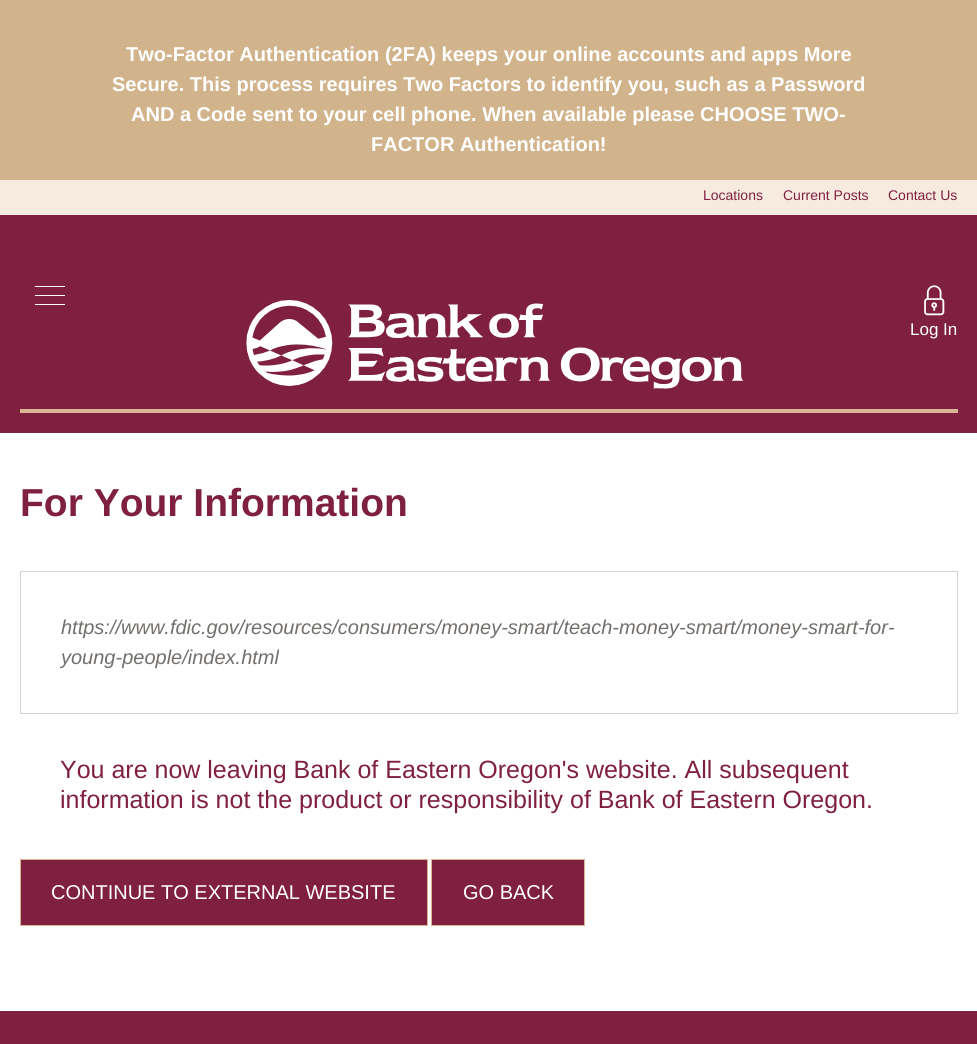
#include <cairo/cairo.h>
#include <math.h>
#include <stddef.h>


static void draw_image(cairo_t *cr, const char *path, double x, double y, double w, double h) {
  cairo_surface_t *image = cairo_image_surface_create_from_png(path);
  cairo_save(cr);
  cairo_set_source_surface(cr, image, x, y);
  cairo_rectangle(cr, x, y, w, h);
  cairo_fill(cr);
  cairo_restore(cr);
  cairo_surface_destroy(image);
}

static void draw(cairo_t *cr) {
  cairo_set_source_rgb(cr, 1, 1, 1);
  cairo_paint(cr);
  cairo_set_source_rgb(cr, 128 / 255.0, 32 / 255.0, 65 / 255.0);
  cairo_rectangle(cr, 0, 215, 977, 218);
  cairo_fill(cr);
  cairo_set_source_rgb(cr, 210 / 255.0, 180 / 255.0, 140 / 255.0);
  cairo_rectangle(cr, 0, 0, 977, 180);
  cairo_fill(cr);
  cairo_set_source_rgb(cr, 247 / 255.0, 235 / 255.0, 224 / 255.0);
  cairo_rectangle(cr, 0, 180, 977, 35);
  cairo_fill(cr);
  cairo_set_source_rgb(cr, 219 / 255.0, 182 / 255.0, 148 / 255.0);
  cairo_rectangle(cr, 20, 409, 938, 4);
  cairo_fill(cr);
  cairo_set_source_rgb(cr, 1, 1, 1);
  cairo_rectangle(cr, 35, 286, 30, 1);
  cairo_fill(cr);
  cairo_rectangle(cr, 35, 295, 30, 1);
  cairo_fill(cr);
  cairo_rectangle(cr, 35, 304, 30, 1);
  cairo_fill(cr);
  draw_image(cr, "images/1.png", 246, 300, 498, 89);
  draw_image(cr, "images/2.png", 924, 285, 21, 31);
  cairo_rectangle(cr, 20.5, 571.5, 937, 142);
  cairo_set_source_rgb(cr, 211 / 255.0, 211 / 255.0, 211 / 255.0);
  cairo_set_line_width(cr, 1);
  cairo_stroke(cr);
  cairo_set_source_rgb(cr, 128 / 255.0, 32 / 255.0, 65 / 255.0);
  cairo_rectangle(cr, 20.5, 859.5, 407, 66);
  cairo_fill_preserve(cr);
  cairo_set_source_rgb(cr, 219 / 255.0, 182 / 255.0, 148 / 255.0);
  cairo_stroke(cr);
  cairo_set_source_rgb(cr, 128 / 255.0, 32 / 255.0, 65 / 255.0);
  cairo_rectangle(cr, 431.5, 859.5, 153, 66);
  cairo_fill_preserve(cr);
  cairo_set_source_rgb(cr, 219 / 255.0, 182 / 255.0, 148 / 255.0);
  cairo_stroke(cr);
  cairo_set_source_rgb(cr, 128 / 255.0, 32 / 255.0, 65 / 255.0);
  cairo_rectangle(cr, 0, 1011, 977, 33);
  cairo_fill(cr);
  cairo_select_font_face(cr, "Liberation Sans", CAIRO_FONT_SLANT_NORMAL, CAIRO_FONT_WEIGHT_BOLD);
  cairo_set_font_size(cr, 20);
  cairo_set_source_rgb(cr, 1, 1, 1);
  cairo_move_to(cr, 126, 61);
  cairo_show_text(cr, "Two-Factor Authentication (2FA) keeps your online accounts and apps More");
  cairo_move_to(cr, 112, 91);
  cairo_show_text(cr, "Secure. This process requires Two Factors to identify you, such as a Password");
  cairo_move_to(cr, 131, 121);
  cairo_show_text(cr, "AND a Code sent to your cell phone. When available please CHOOSE TWO-");
  cairo_move_to(cr, 371, 151);
  cairo_show_text(cr, "FACTOR Authentication!");
  cairo_select_font_face(cr, "Liberation Sans", CAIRO_FONT_SLANT_NORMAL, CAIRO_FONT_WEIGHT_NORMAL);
  cairo_set_font_size(cr, 14);
  cairo_set_source_rgb(cr, 128 / 255.0, 32 / 255.0, 65 / 255.0);
  cairo_move_to(cr, 703, 200);
  cairo_show_text(cr, "Locations");
  cairo_move_to(cr, 783, 200);
  cairo_show_text(cr, "Current Posts");
  cairo_move_to(cr, 888, 200);
  cairo_show_text(cr, "Contact Us");
  cairo_set_font_size(cr, 17);
  cairo_set_source_rgb(cr, 1, 1, 1);
  cairo_move_to(cr, 910, 335);
  cairo_show_text(cr, "Log In");
  cairo_select_font_face(cr, "Liberation Sans", CAIRO_FONT_SLANT_NORMAL, CAIRO_FONT_WEIGHT_BOLD);
  cairo_set_font_size(cr, 39);
  cairo_set_source_rgb(cr, 128 / 255.0, 32 / 255.0, 65 / 255.0);
  cairo_move_to(cr, 20, 516);
  cairo_show_text(cr, "For Your Information");
  cairo_select_font_face(cr, "Liberation Sans", CAIRO_FONT_SLANT_ITALIC, CAIRO_FONT_WEIGHT_NORMAL);
  cairo_set_font_size(cr, 20);
  cairo_set_source_rgb(cr, 114 / 255.0, 111 / 255.0, 108 / 255.0);
  cairo_move_to(cr, 61, 634);
  cairo_show_text(cr, "https://www.fdic.gov/resources/consumers/money-smart/teach-money-smart/money-smart-for-");
  cairo_move_to(cr, 61, 664);
  cairo_show_text(cr, "young-people/index.html");
  cairo_select_font_face(cr, "Liberation Sans", CAIRO_FONT_SLANT_NORMAL, CAIRO_FONT_WEIGHT_NORMAL);
  cairo_set_font_size(cr, 25);
  cairo_set_source_rgb(cr, 128 / 255.0, 32 / 255.0, 65 / 255.0);
  cairo_move_to(cr, 60, 778);
  cairo_show_text(cr, "You are now leaving Bank of Eastern Oregon's website. All subsequent");
  cairo_move_to(cr, 60, 808);
  cairo_show_text(cr, "information is not the product or responsibility of Bank of Eastern Oregon.");
  cairo_set_font_size(cr, 20);
  cairo_set_source_rgb(cr, 1, 1, 1);
  cairo_move_to(cr, 51, 899);
  cairo_show_text(cr, "CONTINUE TO EXTERNAL WEBSITE");
  cairo_move_to(cr, 463, 899);
  cairo_show_text(cr, "GO BACK");
}

int main(void) {
  cairo_surface_t *surface = cairo_image_surface_create(CAIRO_FORMAT_RGB24, 977, 1044);
  cairo_t *cr = cairo_create(surface);
  cairo_font_options_t *options = cairo_font_options_create();
  cairo_font_options_set_hint_metrics(options, CAIRO_HINT_METRICS_OFF);
  cairo_font_options_set_hint_style(options, CAIRO_HINT_STYLE_NONE);
  cairo_set_font_options(cr, options);
  cairo_set_miter_limit(cr, 4);
  draw(cr);
  cairo_surface_write_to_png(surface, "out.png");
  cairo_font_options_destroy(options);
  cairo_destroy(cr);
  cairo_surface_destroy(surface);
  return 0;
}
